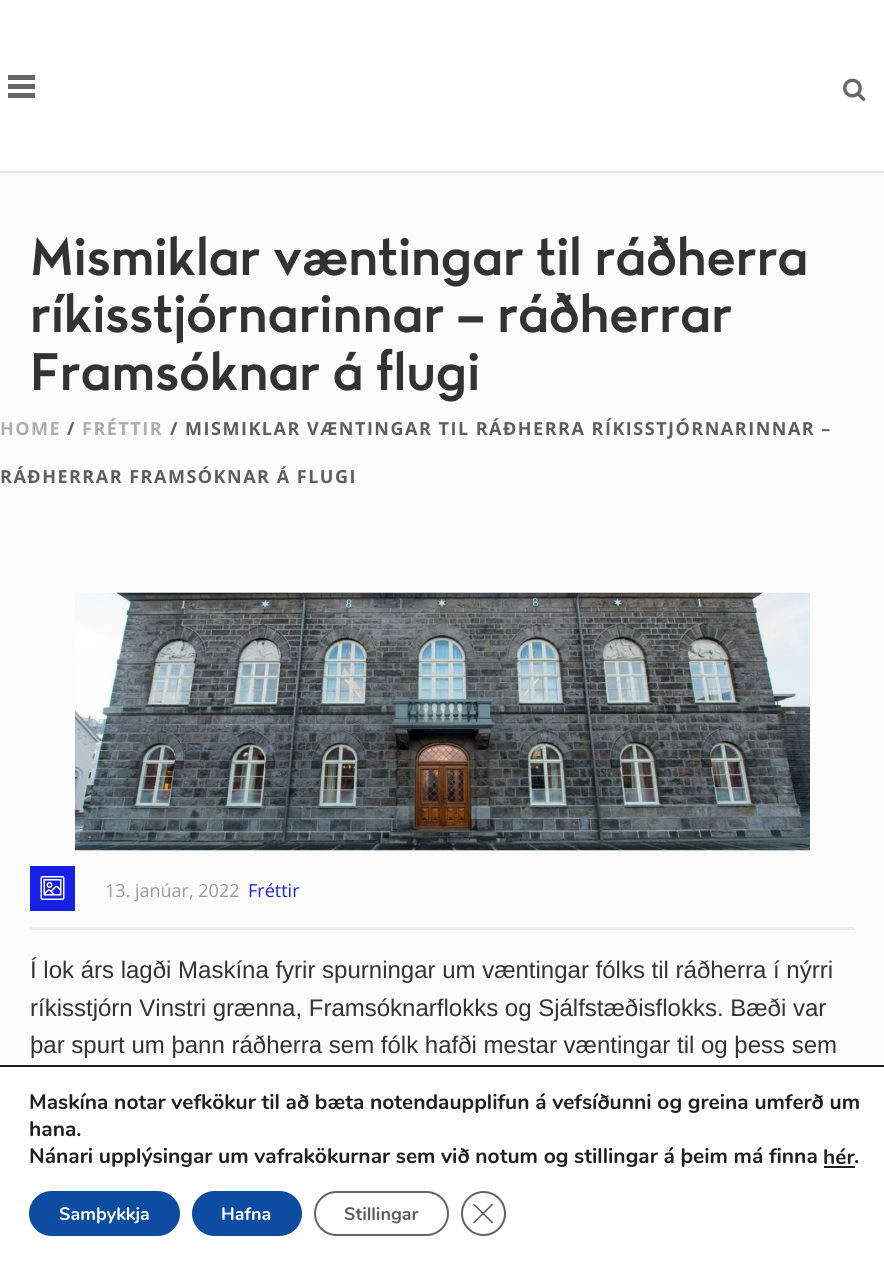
#include <cairo/cairo.h>
#include <math.h>
#include <stddef.h>


static void draw_spaced(cairo_t *cr, double x, double y, const char *s, double letter, double word) {
  cairo_move_to(cr, x, y);
  while (*s) {
    char ch[5] = {0};
    int n = 0;
    do ch[n++] = *s++; while ((*s & 0xC0) == 0x80);
    cairo_show_text(cr, ch);
    cairo_rel_move_to(cr, letter + word * (*ch == ' '), 0);
  }
}

static void rounded_rect(cairo_t *cr, double x, double y, double w, double h, double r) {
  cairo_new_sub_path(cr);
  cairo_arc(cr, x + w - r, y + h - r, r, 0, M_PI / 2);
  cairo_arc(cr, x + r, y + h - r, r, M_PI / 2, M_PI);
  cairo_arc(cr, x + r, y + r, r, M_PI, 1.5 * M_PI);
  cairo_arc(cr, x + w - r, y + r, r, 1.5 * M_PI, 2 * M_PI);
  cairo_close_path(cr);
}

static void draw_image(cairo_t *cr, const char *path, double x, double y, double w, double h) {
  cairo_surface_t *image = cairo_image_surface_create_from_png(path);
  cairo_save(cr);
  cairo_set_source_surface(cr, image, x, y);
  cairo_rectangle(cr, x, y, w, h);
  cairo_fill(cr);
  cairo_restore(cr);
  cairo_surface_destroy(image);
}

static void draw(cairo_t *cr) {
  cairo_set_source_rgb(cr, 1, 1, 1);
  cairo_paint(cr);
  cairo_set_source_rgb(cr, 230 / 255.0, 230 / 255.0, 230 / 255.0);
  cairo_rectangle(cr, 0, 171, 884, 2);
  cairo_fill(cr);
  cairo_set_source_rgb(cr, 102 / 255.0, 102 / 255.0, 102 / 255.0);
  cairo_rectangle(cr, 8, 75, 27, 5);
  cairo_fill(cr);
  cairo_rectangle(cr, 8, 84, 27, 5);
  cairo_fill(cr);
  cairo_rectangle(cr, 8, 93, 27, 5);
  cairo_fill(cr);
  draw_image(cr, "images/1.png", 843, 78, 23, 23);
  cairo_set_source_rgb(cr, 252 / 255.0, 252 / 255.0, 252 / 255.0);
  cairo_rectangle(cr, 0, 173, 884, 892);
  cairo_fill(cr);
  draw_image(cr, "images/2.png", 75, 592, 735, 259);
  cairo_set_source_rgb(cr, 25 / 255.0, 32 / 255.0, 230 / 255.0);
  cairo_rectangle(cr, 30, 866, 45, 45);
  cairo_fill(cr);
  draw_image(cr, "images/3.png", 40, 876, 25, 24);
  cairo_set_source_rgb(cr, 237 / 255.0, 237 / 255.0, 237 / 255.0);
  cairo_rectangle(cr, 30, 927, 825, 3);
  cairo_fill(cr);
  cairo_set_source_rgb(cr, 32 / 255.0, 32 / 255.0, 32 / 255.0);
  cairo_rectangle(cr, 0, 1065, 884, 2);
  cairo_fill(cr);
  cairo_rectangle(cr, 824, 1166, 31, 2);
  cairo_fill(cr);
  cairo_set_source_rgb(cr, 12 / 255.0, 77 / 255.0, 162 / 255.0);
  rounded_rect(cr, 29, 1191, 151, 45, 22.5);
  cairo_fill(cr);
  rounded_rect(cr, 192, 1191, 110, 45, 22.5);
  cairo_fill(cr);
  rounded_rect(cr, 315, 1192, 133, 43, 21.5);
  cairo_set_source_rgb(cr, 99 / 255.0, 99 / 255.0, 99 / 255.0);
  cairo_stroke(cr);
  cairo_arc(cr, 483.5, 1213.5, 21.5, 0, 2 * M_PI);
  cairo_set_source_rgb(cr, 98 / 255.0, 98 / 255.0, 98 / 255.0);
  cairo_stroke(cr);
  cairo_new_path(cr);
  cairo_move_to(cr, 492, 1203.5);
  cairo_line_to(cr, 493.5, 1204.5);
  cairo_line_to(cr, 474, 1223.5);
  cairo_line_to(cr, 473, 1222.5);
  cairo_close_path(cr);
  cairo_fill(cr);
  cairo_new_path(cr);
  cairo_move_to(cr, 473, 1204.5);
  cairo_line_to(cr, 474, 1203.5);
  cairo_line_to(cr, 493.5, 1222.5);
  cairo_line_to(cr, 492, 1223.5);
  cairo_close_path(cr);
  cairo_fill(cr);
  cairo_select_font_face(cr, "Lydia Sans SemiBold", CAIRO_FONT_SLANT_NORMAL, CAIRO_FONT_WEIGHT_NORMAL);
  cairo_set_font_size(cr, 48);
  cairo_set_source_rgb(cr, 51 / 255.0, 51 / 255.0, 51 / 255.0);
  cairo_move_to(cr, 30, 275);
  cairo_show_text(cr, "Mismiklar væntingar til ráðherra");
  cairo_move_to(cr, 30, 332);
  cairo_show_text(cr, "ríkisstjórnarinnar – ráðherrar");
  cairo_move_to(cr, 30, 390);
  cairo_show_text(cr, "Framsóknar á flugi");
  cairo_select_font_face(cr, "Open Sans", CAIRO_FONT_SLANT_NORMAL, CAIRO_FONT_WEIGHT_BOLD);
  cairo_set_font_size(cr, 18);
  cairo_set_source_rgb(cr, 173 / 255.0, 173 / 255.0, 173 / 255.0);
  draw_spaced(cr, 0, 435, "HOME", 1.5, 0);
  cairo_set_source_rgb(cr, 94 / 255.0, 94 / 255.0, 94 / 255.0);
  draw_spaced(cr, 67, 435, "/", 1.5, 0);
  cairo_set_source_rgb(cr, 173 / 255.0, 173 / 255.0, 173 / 255.0);
  draw_spaced(cr, 82, 435, "FRÉTTIR", 1.5, 0);
  cairo_set_source_rgb(cr, 94 / 255.0, 94 / 255.0, 94 / 255.0);
  draw_spaced(cr, 170, 435, "/ MISMIKLAR VÆNTINGAR TIL RÁÐHERRA RÍKISSTJÓRNARINNAR –", 1.5, 0);
  draw_spaced(cr, 0, 483, "RÁÐHERRAR FRAMSÓKNAR Á FLUGI", 1.5, 0);
  cairo_select_font_face(cr, "Open Sans", CAIRO_FONT_SLANT_NORMAL, CAIRO_FONT_WEIGHT_NORMAL);
  cairo_set_source_rgb(cr, 153 / 255.0, 153 / 255.0, 153 / 255.0);
  cairo_move_to(cr, 105, 897);
  cairo_show_text(cr, "13. janúar, 2022");
  cairo_set_source_rgb(cr, 25 / 255.0, 32 / 255.0, 230 / 255.0);
  cairo_move_to(cr, 248, 897);
  cairo_show_text(cr, "Fréttir");
  cairo_select_font_face(cr, "Liberation Sans", CAIRO_FONT_SLANT_NORMAL, CAIRO_FONT_WEIGHT_NORMAL);
  cairo_set_font_size(cr, 24);
  cairo_set_source_rgb(cr, 51 / 255.0, 51 / 255.0, 51 / 255.0);
  cairo_move_to(cr, 30, 978);
  cairo_show_text(cr, "Í lok árs lagði Maskína fyrir spurningar um væntingar fólks til ráðherra í nýrri");
  cairo_move_to(cr, 30, 1016);
  cairo_show_text(cr, "ríkisstjórn Vinstri grænna, Framsóknarflokks og Sjálfstæðisflokks. Bæði var");
  cairo_move_to(cr, 30, 1053);
  cairo_show_text(cr, "þar spurt um þann ráðherra sem fólk hafði mestar væntingar til og þess sem");
  cairo_select_font_face(cr, "Nunito", CAIRO_FONT_SLANT_NORMAL, CAIRO_FONT_WEIGHT_BOLD);
  cairo_set_font_size(cr, 21);
  cairo_set_source_rgb(cr, 32 / 255.0, 32 / 255.0, 32 / 255.0);
  cairo_move_to(cr, 29, 1109);
  cairo_show_text(cr, "Maskína notar vefkökur til að bæta notendaupplifun á vefsíðunni og greina umferð um");
  cairo_move_to(cr, 29, 1136);
  cairo_show_text(cr, "hana.");
  cairo_move_to(cr, 29, 1163);
  cairo_show_text(cr, "Nánari upplýsingar um vafrakökurnar sem við notum og stillingar á þeim má finna");
  cairo_move_to(cr, 823, 1164);
  cairo_show_text(cr, "hér");
  cairo_move_to(cr, 854, 1163);
  cairo_show_text(cr, ".");
  cairo_set_font_size(cr, 18);
  cairo_set_source_rgb(cr, 1, 1, 1);
  cairo_move_to(cr, 59, 1220);
  cairo_show_text(cr, "Samþykkja");
  cairo_move_to(cr, 221, 1220);
  cairo_show_text(cr, "Hafna");
  cairo_set_source_rgb(cr, 94 / 255.0, 94 / 255.0, 94 / 255.0);
  cairo_move_to(cr, 344, 1220);
  cairo_show_text(cr, "Stillingar");
}

int main(void) {
  cairo_surface_t *surface = cairo_image_surface_create(CAIRO_FORMAT_RGB24, 884, 1262);
  cairo_t *cr = cairo_create(surface);
  cairo_font_options_t *options = cairo_font_options_create();
  cairo_font_options_set_hint_metrics(options, CAIRO_HINT_METRICS_OFF);
  cairo_font_options_set_hint_style(options, CAIRO_HINT_STYLE_NONE);
  cairo_set_font_options(cr, options);
  cairo_set_miter_limit(cr, 4);
  draw(cr);
  cairo_surface_write_to_png(surface, "out.png");
  cairo_font_options_destroy(options);
  cairo_destroy(cr);
  cairo_surface_destroy(surface);
  return 0;
}
